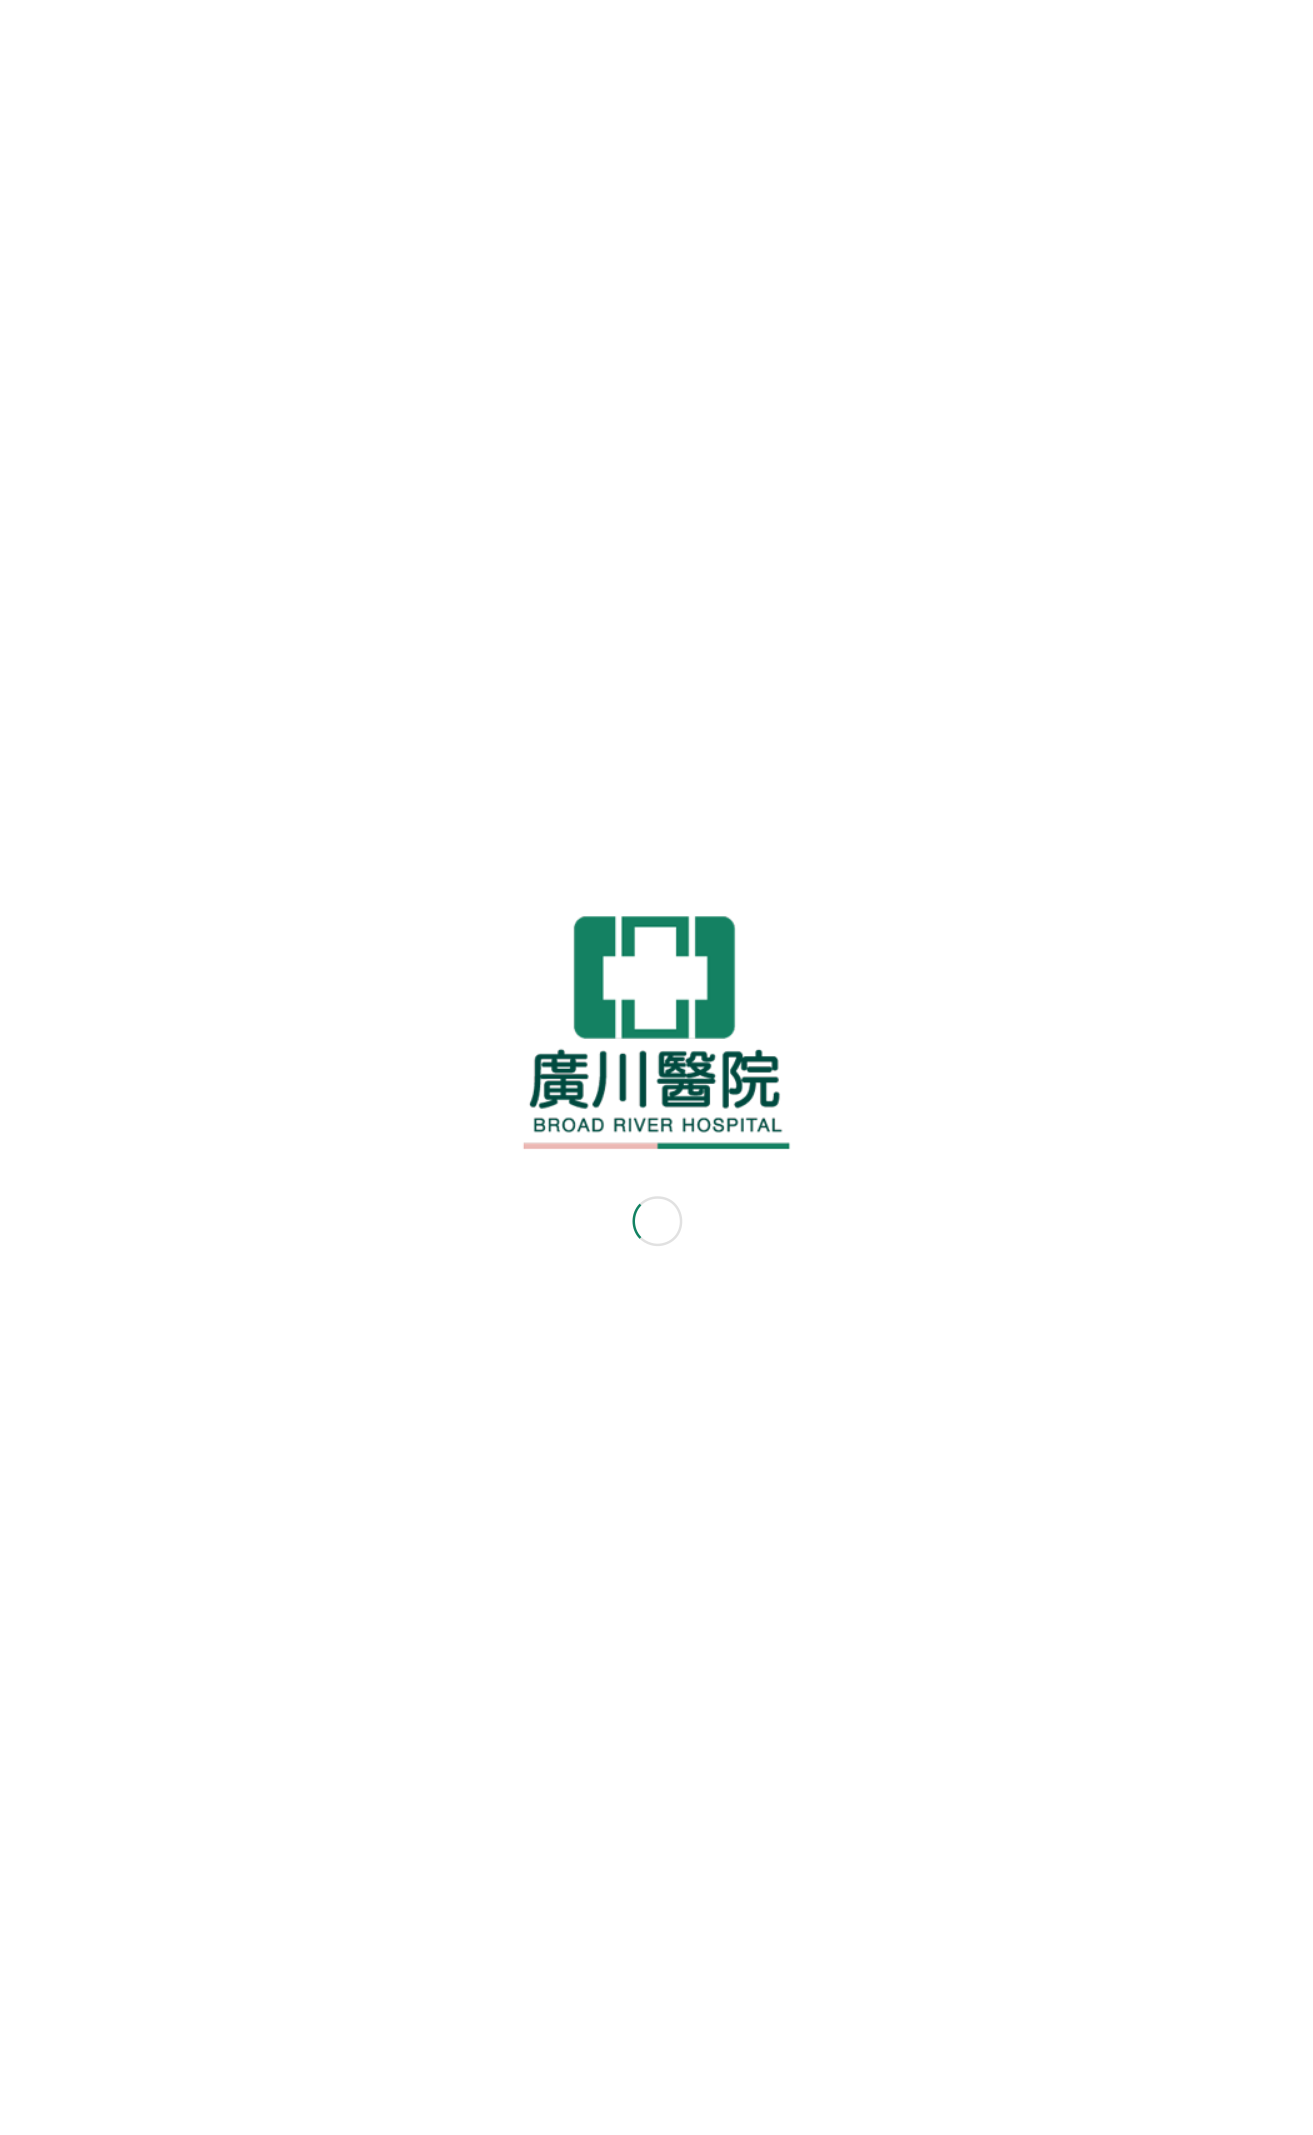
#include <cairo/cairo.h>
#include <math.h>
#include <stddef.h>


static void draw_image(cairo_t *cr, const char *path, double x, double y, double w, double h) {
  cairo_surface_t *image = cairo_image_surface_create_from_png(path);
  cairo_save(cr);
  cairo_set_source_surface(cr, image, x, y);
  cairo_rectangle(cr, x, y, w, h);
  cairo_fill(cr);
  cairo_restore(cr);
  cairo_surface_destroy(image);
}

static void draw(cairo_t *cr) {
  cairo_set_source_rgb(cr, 1, 1, 1);
  cairo_paint(cr);
  draw_image(cr, "images/1.png", 522, 916, 269, 234);
  cairo_new_path(cr);
  cairo_move_to(cr, 640.5, 1204.5);
  cairo_curve_to(cr, 645, 1200, 651, 1197.5, 657.5, 1197.5);
  cairo_curve_to(cr, 686, 1197.5, 690, 1239, 662, 1244.5);
  cairo_curve_to(cr, 654.5, 1246, 646.5, 1243.5, 640.5, 1238);
  cairo_set_source_rgb(cr, 225 / 255.0, 225 / 255.0, 225 / 255.0);
  cairo_set_line_width(cr, 2.5);
  cairo_stroke(cr);
  cairo_new_path(cr);
  cairo_move_to(cr, 640.5, 1238);
  cairo_curve_to(cr, 631.5, 1229, 631.5, 1213.5, 640.5, 1204.5);
  cairo_set_source_rgb(cr, 18 / 255.0, 130 / 255.0, 98 / 255.0);
  cairo_stroke(cr);
}

int main(void) {
  cairo_surface_t *surface = cairo_image_surface_create(CAIRO_FORMAT_RGB24, 1313, 2135);
  cairo_t *cr = cairo_create(surface);
  cairo_font_options_t *options = cairo_font_options_create();
  cairo_font_options_set_hint_metrics(options, CAIRO_HINT_METRICS_OFF);
  cairo_font_options_set_hint_style(options, CAIRO_HINT_STYLE_NONE);
  cairo_set_font_options(cr, options);
  cairo_set_miter_limit(cr, 4);
  draw(cr);
  cairo_surface_write_to_png(surface, "out.png");
  cairo_font_options_destroy(options);
  cairo_destroy(cr);
  cairo_surface_destroy(surface);
  return 0;
}
